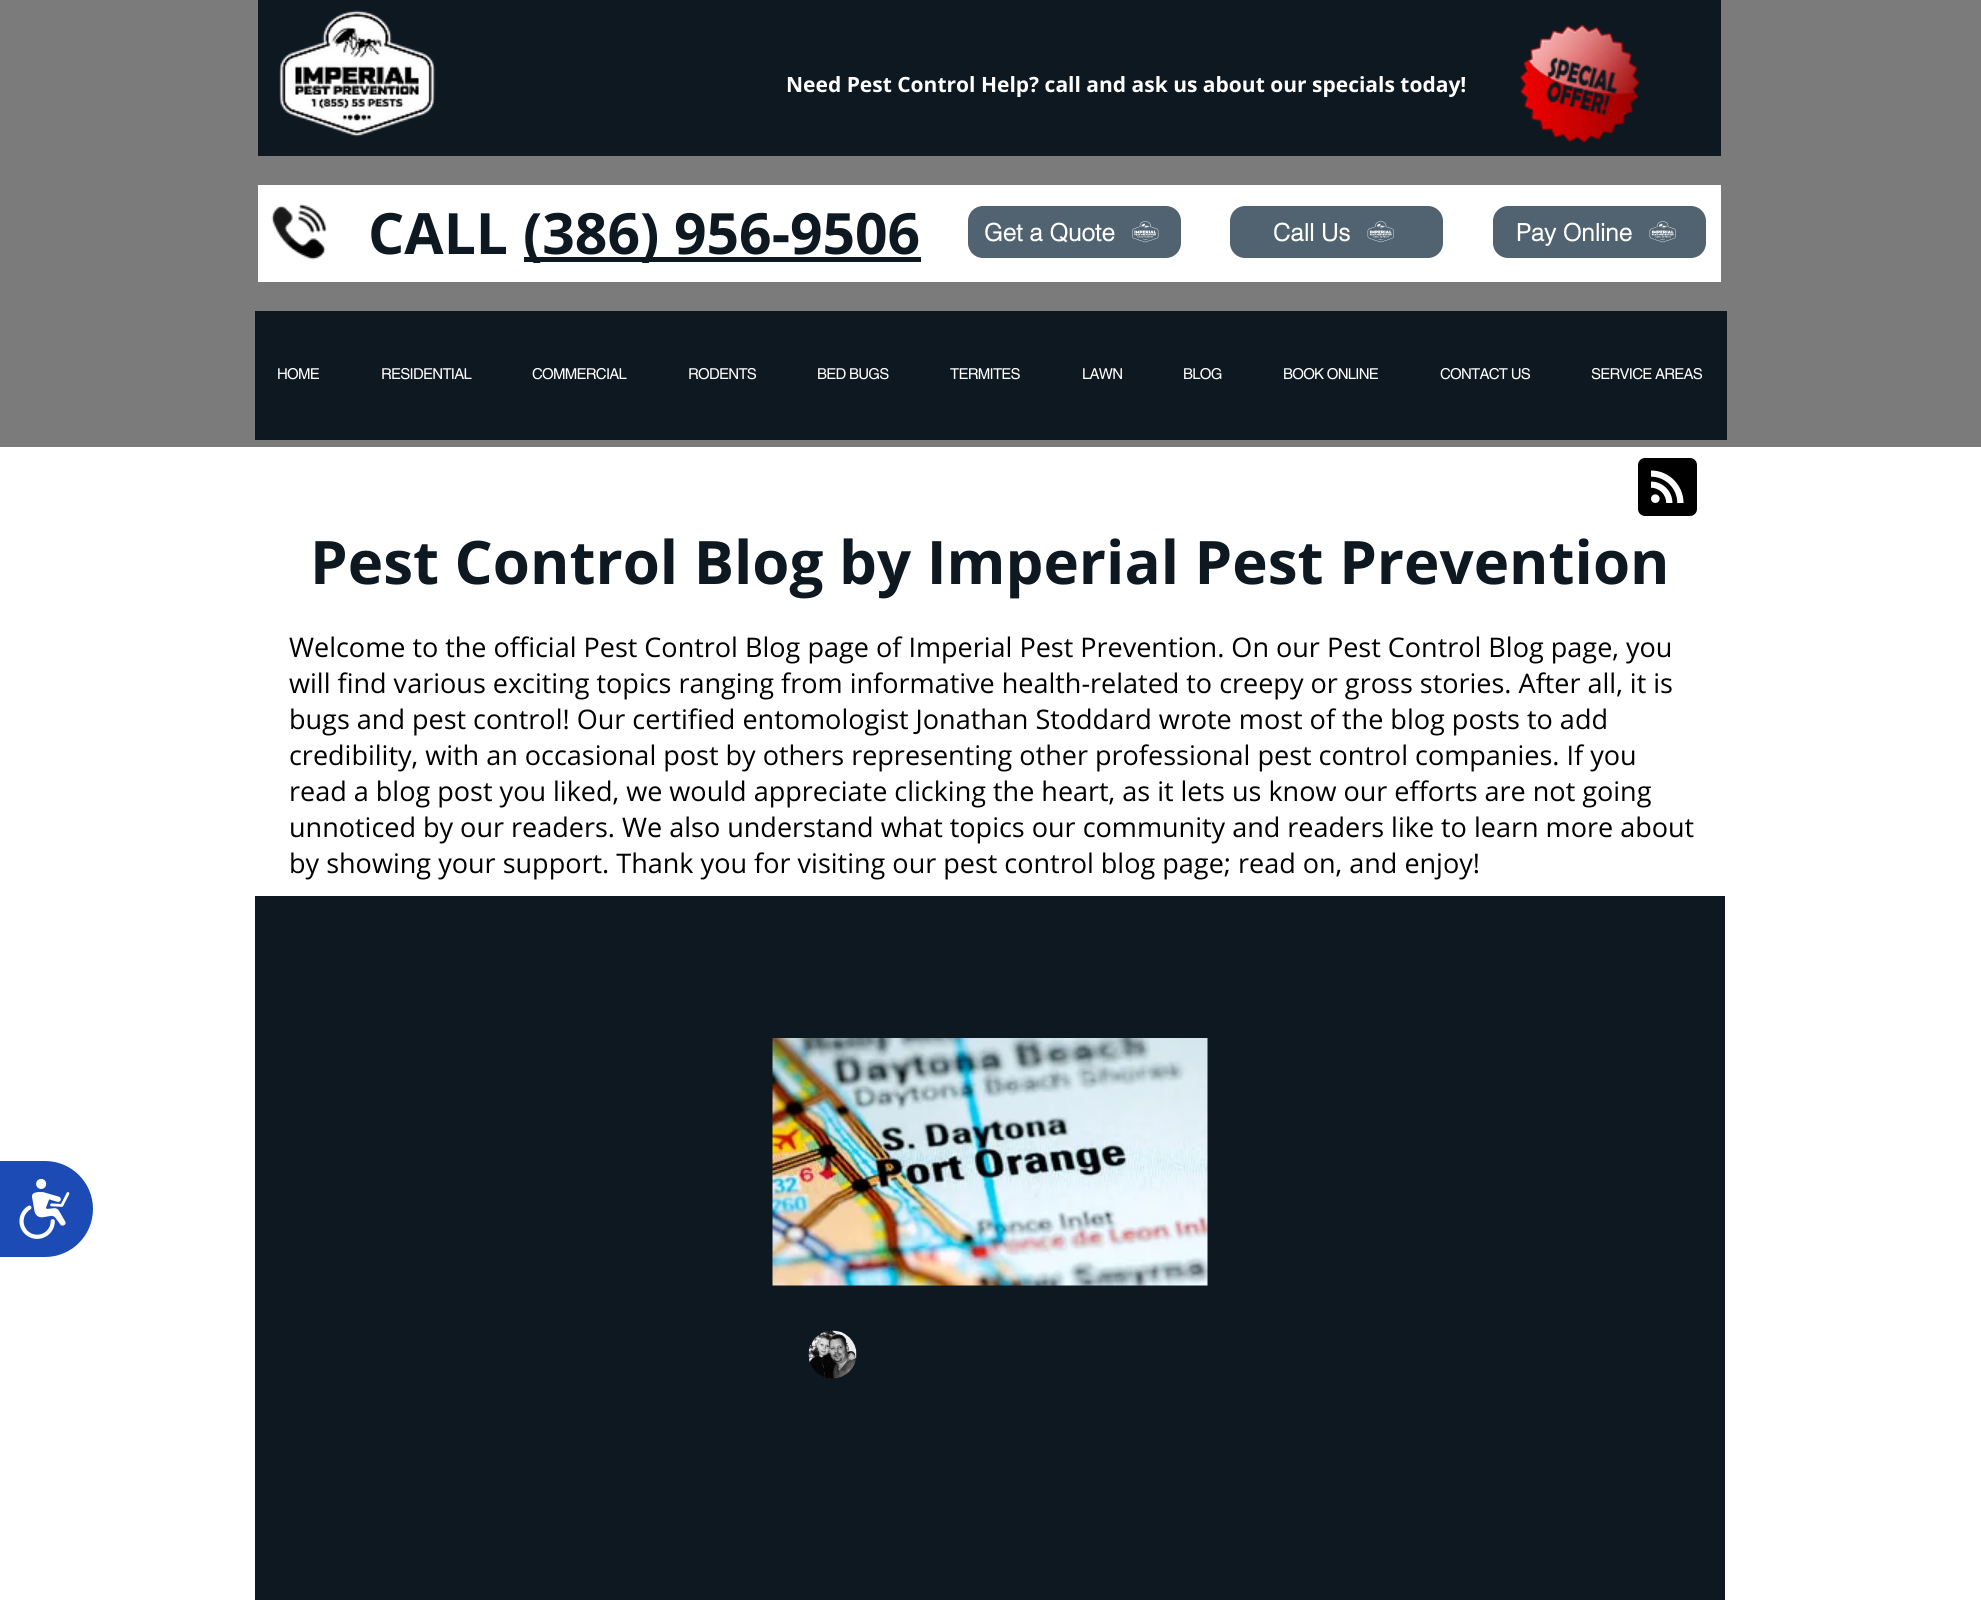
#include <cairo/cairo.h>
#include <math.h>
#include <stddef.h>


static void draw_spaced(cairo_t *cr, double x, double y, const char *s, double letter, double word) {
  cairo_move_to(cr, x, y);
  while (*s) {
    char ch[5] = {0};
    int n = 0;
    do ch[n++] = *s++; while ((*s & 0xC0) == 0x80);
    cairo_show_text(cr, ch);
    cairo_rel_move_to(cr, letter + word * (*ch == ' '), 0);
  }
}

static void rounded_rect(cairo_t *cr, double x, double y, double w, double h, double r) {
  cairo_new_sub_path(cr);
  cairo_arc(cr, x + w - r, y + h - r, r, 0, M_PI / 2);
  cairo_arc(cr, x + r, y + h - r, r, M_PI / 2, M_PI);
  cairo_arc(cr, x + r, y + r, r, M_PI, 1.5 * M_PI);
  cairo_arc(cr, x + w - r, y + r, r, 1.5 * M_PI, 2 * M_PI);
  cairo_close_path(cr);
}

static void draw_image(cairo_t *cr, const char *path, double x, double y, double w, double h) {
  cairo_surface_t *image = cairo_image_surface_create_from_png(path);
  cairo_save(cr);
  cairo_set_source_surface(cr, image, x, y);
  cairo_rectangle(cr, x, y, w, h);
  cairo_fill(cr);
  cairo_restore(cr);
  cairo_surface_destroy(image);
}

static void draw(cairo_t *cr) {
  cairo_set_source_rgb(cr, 1, 1, 1);
  cairo_paint(cr);
  cairo_set_source_rgb(cr, 123 / 255.0, 123 / 255.0, 123 / 255.0);
  cairo_rectangle(cr, 0, 0, 1981, 447);
  cairo_fill(cr);
  cairo_set_source_rgb(cr, 14 / 255.0, 24 / 255.0, 33 / 255.0);
  cairo_rectangle(cr, 258, 0, 1463, 156);
  cairo_fill(cr);
  draw_image(cr, "images/1.png", 279, 10, 157, 127);
  draw_image(cr, "images/2.png", 1519, 24, 121, 119);
  cairo_set_source_rgb(cr, 1, 1, 1);
  cairo_rectangle(cr, 258, 185, 1463, 97);
  cairo_fill(cr);
  draw_image(cr, "images/3.png", 271, 204, 56, 56);
  cairo_set_source_rgb(cr, 14 / 255.0, 24 / 255.0, 33 / 255.0);
  cairo_rectangle(cr, 524, 257, 397, 5);
  cairo_fill(cr);
  cairo_set_source_rgb(cr, 81 / 255.0, 99 / 255.0, 113 / 255.0);
  rounded_rect(cr, 968, 206, 213, 52, 15);
  cairo_fill(cr);
  draw_image(cr, "images/4.png", 1132, 221, 27, 22);
  rounded_rect(cr, 1230, 206, 213, 52, 15);
  cairo_fill(cr);
  draw_image(cr, "images/5.png", 1367, 221, 27, 22);
  rounded_rect(cr, 1493, 206, 213, 52, 15);
  cairo_fill(cr);
  draw_image(cr, "images/5.png", 1649, 221, 27, 22);
  cairo_set_source_rgb(cr, 14 / 255.0, 24 / 255.0, 33 / 255.0);
  cairo_rectangle(cr, 255, 311, 1472, 129);
  cairo_fill(cr);
  draw_image(cr, "images/6.png", 1638, 458, 59, 58);
  cairo_rectangle(cr, 255, 896, 1470, 704);
  cairo_fill(cr);
  draw_image(cr, "images/7.png", 772, 1038, 436, 248);
  draw_image(cr, "images/8.png", 808, 1330, 49, 49);
  cairo_set_source_rgb(cr, 28 / 255.0, 75 / 255.0, 182 / 255.0);
  cairo_new_path(cr);
  cairo_move_to(cr, 0, 1161);
  cairo_line_to(cr, 45, 1161);
  cairo_curve_to(cr, 71.5, 1161, 93, 1182.5, 93, 1209);
  cairo_curve_to(cr, 93, 1235.5, 71.5, 1257, 45, 1257);
  cairo_line_to(cr, 0, 1257);
  cairo_close_path(cr);
  cairo_fill(cr);
  draw_image(cr, "images/9.png", 19, 1179, 51, 60);
  cairo_select_font_face(cr, "Open Sans", CAIRO_FONT_SLANT_NORMAL, CAIRO_FONT_WEIGHT_BOLD);
  cairo_set_font_size(cr, 21);
  cairo_set_source_rgb(cr, 1, 1, 1);
  cairo_move_to(cr, 786, 92);
  cairo_show_text(cr, "Need Pest Control Help? call and ask us about our specials today!");
  cairo_set_font_size(cr, 57);
  cairo_set_source_rgb(cr, 14 / 255.0, 24 / 255.0, 33 / 255.0);
  cairo_move_to(cr, 368, 254);
  cairo_show_text(cr, "CALL");
  cairo_move_to(cr, 523, 254);
  cairo_show_text(cr, "(386) 956-9506");
  cairo_select_font_face(cr, "helvetica", CAIRO_FONT_SLANT_NORMAL, CAIRO_FONT_WEIGHT_BOLD);
  cairo_set_font_size(cr, 24);
  cairo_set_source_rgb(cr, 1, 1, 1);
  cairo_move_to(cr, 984, 241);
  cairo_show_text(cr, "Get a Quote");
  cairo_move_to(cr, 1273, 241);
  cairo_show_text(cr, "Call Us");
  cairo_move_to(cr, 1516, 241);
  cairo_show_text(cr, "Pay Online");
  cairo_select_font_face(cr, "helvetica", CAIRO_FONT_SLANT_NORMAL, CAIRO_FONT_WEIGHT_NORMAL);
  cairo_set_font_size(cr, 15);
  draw_spaced(cr, 277, 379, "HOME", -0.75, 0);
  draw_spaced(cr, 381, 379, "RESIDENTIAL", -0.75, 0);
  draw_spaced(cr, 532, 379, "COMMERCIAL", -0.75, 0);
  draw_spaced(cr, 688, 379, "RODENTS", -0.75, 0);
  draw_spaced(cr, 817, 379, "BED BUGS", -0.75, 0);
  draw_spaced(cr, 950, 379, "TERMITES", -0.75, 0);
  draw_spaced(cr, 1082, 379, "LAWN", -0.75, 0);
  draw_spaced(cr, 1183, 379, "BLOG", -0.75, 0);
  draw_spaced(cr, 1283, 379, "BOOK ONLINE", -0.75, 0);
  draw_spaced(cr, 1440, 379, "CONTACT US", -0.75, 0);
  draw_spaced(cr, 1591, 379, "SERVICE AREAS", -0.75, 0);
  cairo_select_font_face(cr, "Open Sans", CAIRO_FONT_SLANT_NORMAL, CAIRO_FONT_WEIGHT_BOLD);
  cairo_set_font_size(cr, 60);
  cairo_set_source_rgb(cr, 14 / 255.0, 24 / 255.0, 33 / 255.0);
  cairo_move_to(cr, 310, 584);
  cairo_show_text(cr, "Pest Control Blog by Imperial Pest Prevention");
  cairo_select_font_face(cr, "Open Sans", CAIRO_FONT_SLANT_NORMAL, CAIRO_FONT_WEIGHT_NORMAL);
  cairo_set_font_size(cr, 27);
  cairo_set_source_rgb(cr, 0, 0, 0);
  cairo_move_to(cr, 289, 657);
  cairo_show_text(cr, "Welcome to the official Pest Control Blog page of Imperial Pest Prevention. On our Pest Control Blog page, you");
  cairo_move_to(cr, 289, 693);
  cairo_show_text(cr, "will find various exciting topics ranging from informative health-related to creepy or gross stories. After all, it is");
  cairo_move_to(cr, 289, 729);
  cairo_show_text(cr, "bugs and pest control! Our certified entomologist Jonathan Stoddard wrote most of the blog posts to add");
  cairo_move_to(cr, 289, 765);
  cairo_show_text(cr, "credibility, with an occasional post by others representing other professional pest control companies. If you");
  cairo_move_to(cr, 289, 801);
  cairo_show_text(cr, "read a blog post you liked, we would appreciate clicking the heart, as it lets us know our efforts are not going");
  cairo_move_to(cr, 289, 837);
  cairo_show_text(cr, "unnoticed by our readers. We also understand what topics our community and readers like to learn more about");
  cairo_move_to(cr, 289, 873);
  cairo_show_text(cr, "by showing your support. Thank you for visiting our pest control blog page; read on, and enjoy!");
}

int main(void) {
  cairo_surface_t *surface = cairo_image_surface_create(CAIRO_FORMAT_RGB24, 1981, 1600);
  cairo_t *cr = cairo_create(surface);
  cairo_font_options_t *options = cairo_font_options_create();
  cairo_font_options_set_hint_metrics(options, CAIRO_HINT_METRICS_OFF);
  cairo_font_options_set_hint_style(options, CAIRO_HINT_STYLE_NONE);
  cairo_set_font_options(cr, options);
  cairo_set_miter_limit(cr, 4);
  draw(cr);
  cairo_surface_write_to_png(surface, "out.png");
  cairo_font_options_destroy(options);
  cairo_destroy(cr);
  cairo_surface_destroy(surface);
  return 0;
}
